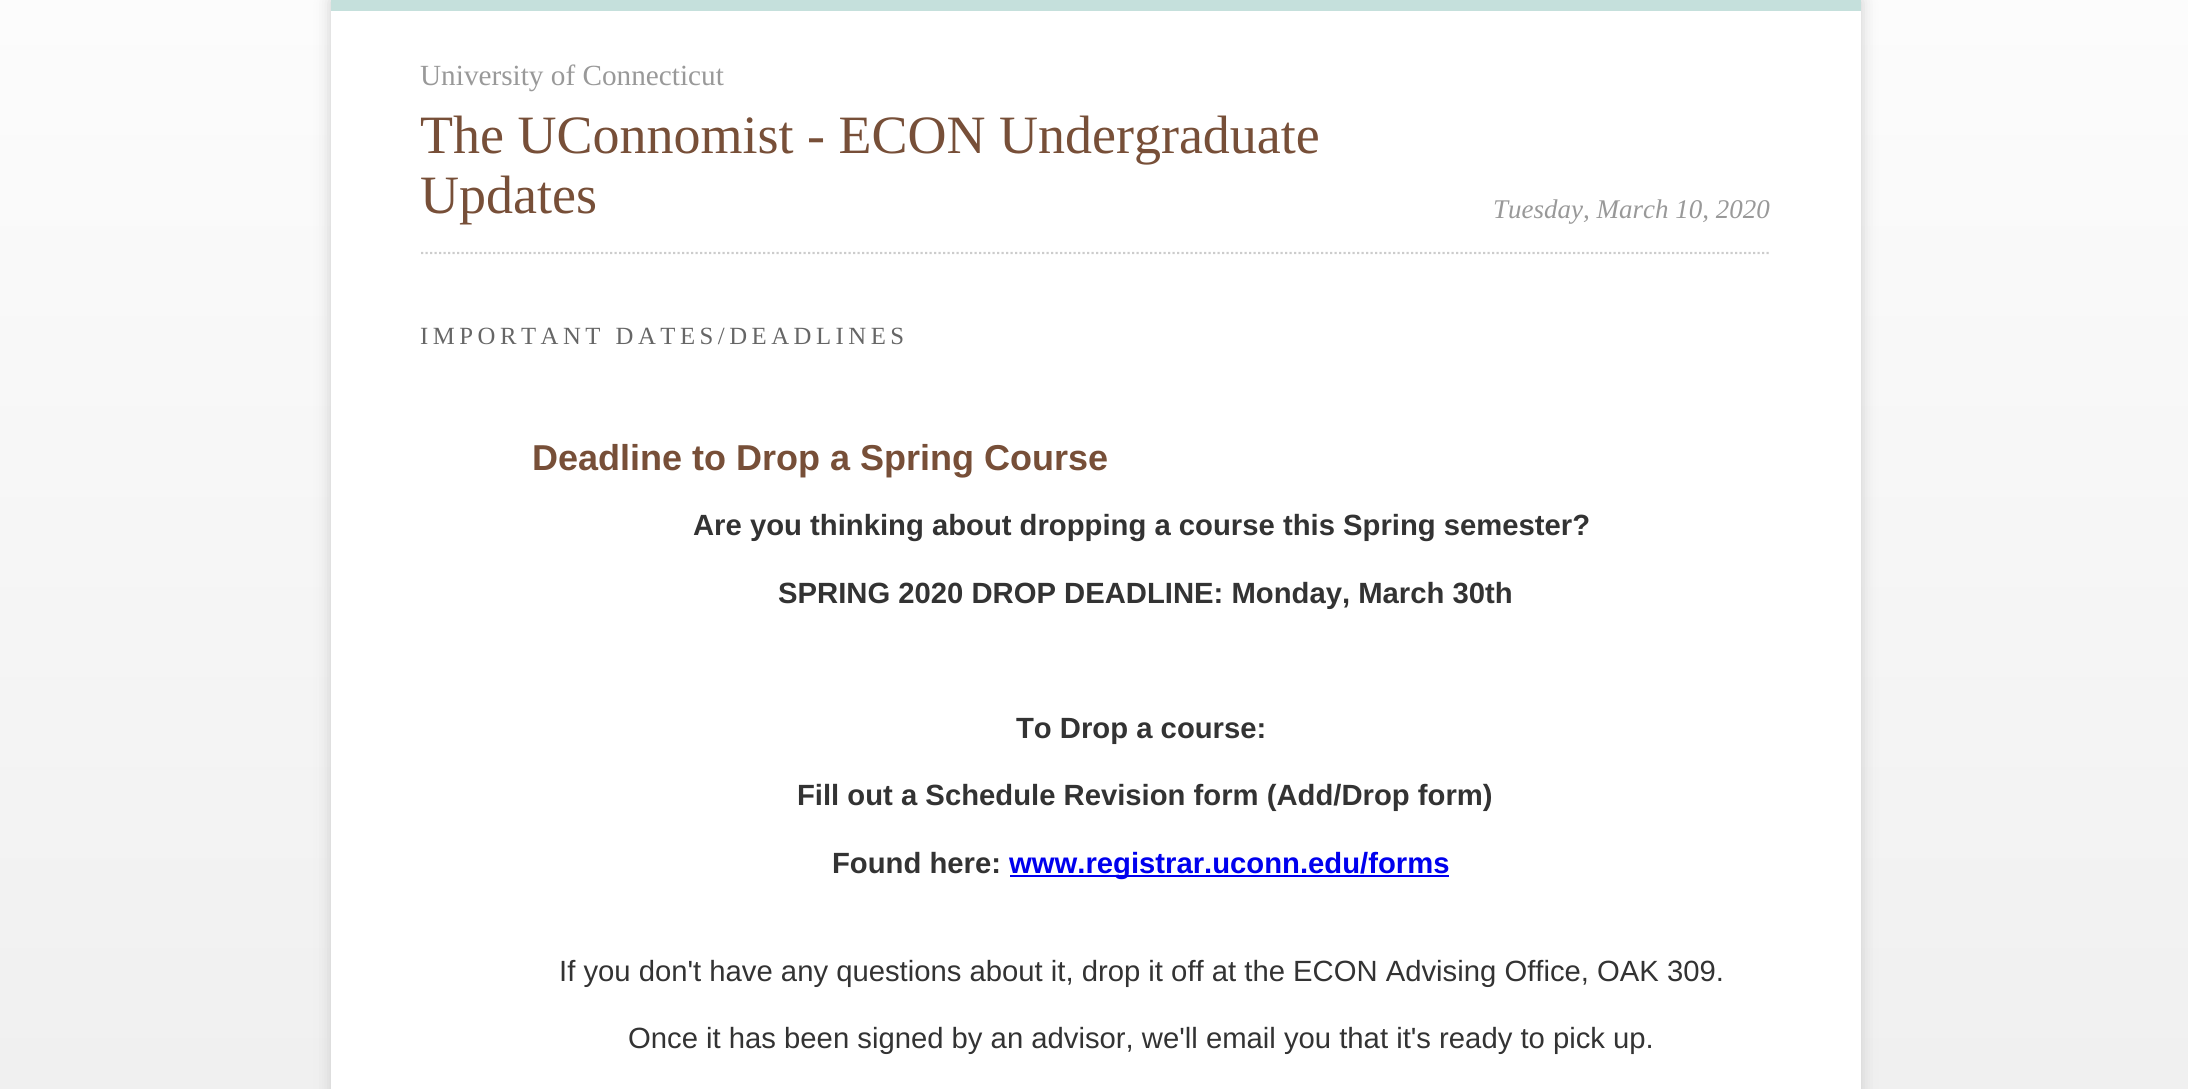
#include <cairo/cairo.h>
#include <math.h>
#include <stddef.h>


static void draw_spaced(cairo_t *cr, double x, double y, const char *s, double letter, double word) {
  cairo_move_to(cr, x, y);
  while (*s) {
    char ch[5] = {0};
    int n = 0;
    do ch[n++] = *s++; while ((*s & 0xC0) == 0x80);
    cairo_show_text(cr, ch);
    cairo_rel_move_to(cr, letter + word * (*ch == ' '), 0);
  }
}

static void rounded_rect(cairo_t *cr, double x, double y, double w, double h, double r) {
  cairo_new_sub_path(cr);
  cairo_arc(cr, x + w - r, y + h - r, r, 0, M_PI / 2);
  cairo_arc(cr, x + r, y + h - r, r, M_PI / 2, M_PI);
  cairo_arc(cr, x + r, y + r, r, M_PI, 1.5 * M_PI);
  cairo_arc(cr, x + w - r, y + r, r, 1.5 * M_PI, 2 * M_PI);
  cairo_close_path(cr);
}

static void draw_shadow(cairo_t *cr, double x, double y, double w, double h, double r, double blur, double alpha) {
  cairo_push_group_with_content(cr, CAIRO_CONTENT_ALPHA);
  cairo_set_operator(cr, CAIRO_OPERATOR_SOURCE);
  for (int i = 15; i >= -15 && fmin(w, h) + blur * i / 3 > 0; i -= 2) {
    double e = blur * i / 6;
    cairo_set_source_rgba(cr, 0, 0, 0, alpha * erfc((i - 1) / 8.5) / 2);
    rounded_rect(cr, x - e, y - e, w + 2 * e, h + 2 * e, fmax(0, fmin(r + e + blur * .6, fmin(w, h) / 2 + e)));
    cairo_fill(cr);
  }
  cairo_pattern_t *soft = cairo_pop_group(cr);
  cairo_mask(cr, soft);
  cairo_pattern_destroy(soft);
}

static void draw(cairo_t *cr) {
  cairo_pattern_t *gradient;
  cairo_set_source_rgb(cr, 1, 1, 1);
  cairo_paint(cr);
  gradient = cairo_pattern_create_linear(1095, 0, 1095, 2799);
  cairo_pattern_add_color_stop_rgba(gradient, 0, 252 / 255.0, 252 / 255.0, 252 / 255.0, 1);
  cairo_pattern_add_color_stop_rgba(gradient, 1, 221 / 255.0, 221 / 255.0, 221 / 255.0, 1);
  cairo_set_source(cr, gradient);
  cairo_pattern_destroy(gradient);
  cairo_rectangle(cr, 0, 0, 2188, 1089);
  cairo_fill(cr);
  cairo_set_source_rgb(cr, 204 / 255.0, 204 / 255.0, 204 / 255.0);
  draw_shadow(cr, 331, 0, 1530, 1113, 0, 8, 1);
  cairo_set_source_rgb(cr, 1, 1, 1);
  cairo_rectangle(cr, 331, 11, 1530, 1078);
  cairo_fill(cr);
  cairo_set_source_rgb(cr, 197 / 255.0, 224 / 255.0, 220 / 255.0);
  cairo_rectangle(cr, 331, 0, 1530, 11);
  cairo_fill(cr);
  cairo_new_path(cr);
  cairo_move_to(cr, 421, 253);
  cairo_line_to(cr, 1771, 253);
  cairo_set_source_rgb(cr, 204 / 255.0, 204 / 255.0, 204 / 255.0);
  cairo_set_line_width(cr, 2.2);
  cairo_set_dash(cr, (double[]){2.25, 2.25}, 2, 0);
  cairo_stroke(cr);
  cairo_set_source_rgb(cr, 0, 0, 238 / 255.0);
  cairo_rectangle(cr, 1010, 875, 439, 2);
  cairo_fill(cr);
  cairo_select_font_face(cr, "Liberation Serif", CAIRO_FONT_SLANT_NORMAL, CAIRO_FONT_WEIGHT_NORMAL);
  cairo_set_font_size(cr, 29.25);
  cairo_set_source_rgb(cr, 153 / 255.0, 153 / 255.0, 153 / 255.0);
  cairo_move_to(cr, 420, 85);
  cairo_show_text(cr, "University of Connecticut");
  cairo_set_font_size(cr, 54);
  cairo_set_source_rgb(cr, 119 / 255.0, 79 / 255.0, 56 / 255.0);
  cairo_move_to(cr, 420, 153);
  cairo_show_text(cr, "The UConnomist - ECON Undergraduate");
  cairo_move_to(cr, 420, 213);
  cairo_show_text(cr, "Updates");
  cairo_select_font_face(cr, "Liberation Serif", CAIRO_FONT_SLANT_ITALIC, CAIRO_FONT_WEIGHT_NORMAL);
  cairo_set_font_size(cr, 27);
  cairo_set_source_rgb(cr, 153 / 255.0, 153 / 255.0, 153 / 255.0);
  cairo_move_to(cr, 1493, 218);
  cairo_show_text(cr, "Tuesday, March 10, 2020");
  cairo_select_font_face(cr, "Liberation Serif", CAIRO_FONT_SLANT_NORMAL, CAIRO_FONT_WEIGHT_NORMAL);
  cairo_set_font_size(cr, 24.75);
  cairo_set_source_rgb(cr, 102 / 255.0, 102 / 255.0, 102 / 255.0);
  draw_spaced(cr, 420, 344, "IMPORTANT DATES/DEADLINES", 4.5, 0);
  cairo_select_font_face(cr, "Liberation Sans", CAIRO_FONT_SLANT_NORMAL, CAIRO_FONT_WEIGHT_BOLD);
  cairo_set_font_size(cr, 36);
  cairo_set_source_rgb(cr, 119 / 255.0, 79 / 255.0, 56 / 255.0);
  cairo_move_to(cr, 532, 470);
  cairo_show_text(cr, "Deadline to Drop a Spring Course");
  cairo_set_font_size(cr, 29.25);
  cairo_set_source_rgb(cr, 51 / 255.0, 51 / 255.0, 51 / 255.0);
  cairo_move_to(cr, 693, 535);
  cairo_show_text(cr, "Are you thinking about dropping a course this Spring semester?");
  cairo_move_to(cr, 778, 603);
  cairo_show_text(cr, "SPRING 2020 DROP DEADLINE: Monday, March 30th");
  cairo_move_to(cr, 1016, 738);
  cairo_show_text(cr, "To Drop a course:");
  cairo_move_to(cr, 797, 805);
  cairo_show_text(cr, "Fill out a Schedule Revision form (Add/Drop form)");
  cairo_move_to(cr, 832, 873);
  cairo_show_text(cr, "Found here:");
  cairo_set_source_rgb(cr, 0, 0, 238 / 255.0);
  cairo_move_to(cr, 1009, 873);
  cairo_show_text(cr, "www.registrar.uconn.edu/forms");
  cairo_select_font_face(cr, "Liberation Sans", CAIRO_FONT_SLANT_NORMAL, CAIRO_FONT_WEIGHT_NORMAL);
  cairo_set_source_rgb(cr, 51 / 255.0, 51 / 255.0, 51 / 255.0);
  cairo_move_to(cr, 559, 981);
  cairo_show_text(cr, "If you don't have any questions about it, drop it off at the ECON Advising Office, OAK 309.");
  cairo_move_to(cr, 628, 1048);
  cairo_show_text(cr, "Once it has been signed by an advisor, we'll email you that it's ready to pick up.");
}

int main(void) {
  cairo_surface_t *surface = cairo_image_surface_create(CAIRO_FORMAT_RGB24, 2188, 1089);
  cairo_t *cr = cairo_create(surface);
  cairo_font_options_t *options = cairo_font_options_create();
  cairo_font_options_set_hint_metrics(options, CAIRO_HINT_METRICS_OFF);
  cairo_font_options_set_hint_style(options, CAIRO_HINT_STYLE_NONE);
  cairo_set_font_options(cr, options);
  cairo_set_miter_limit(cr, 4);
  draw(cr);
  cairo_surface_write_to_png(surface, "out.png");
  cairo_font_options_destroy(options);
  cairo_destroy(cr);
  cairo_surface_destroy(surface);
  return 0;
}
